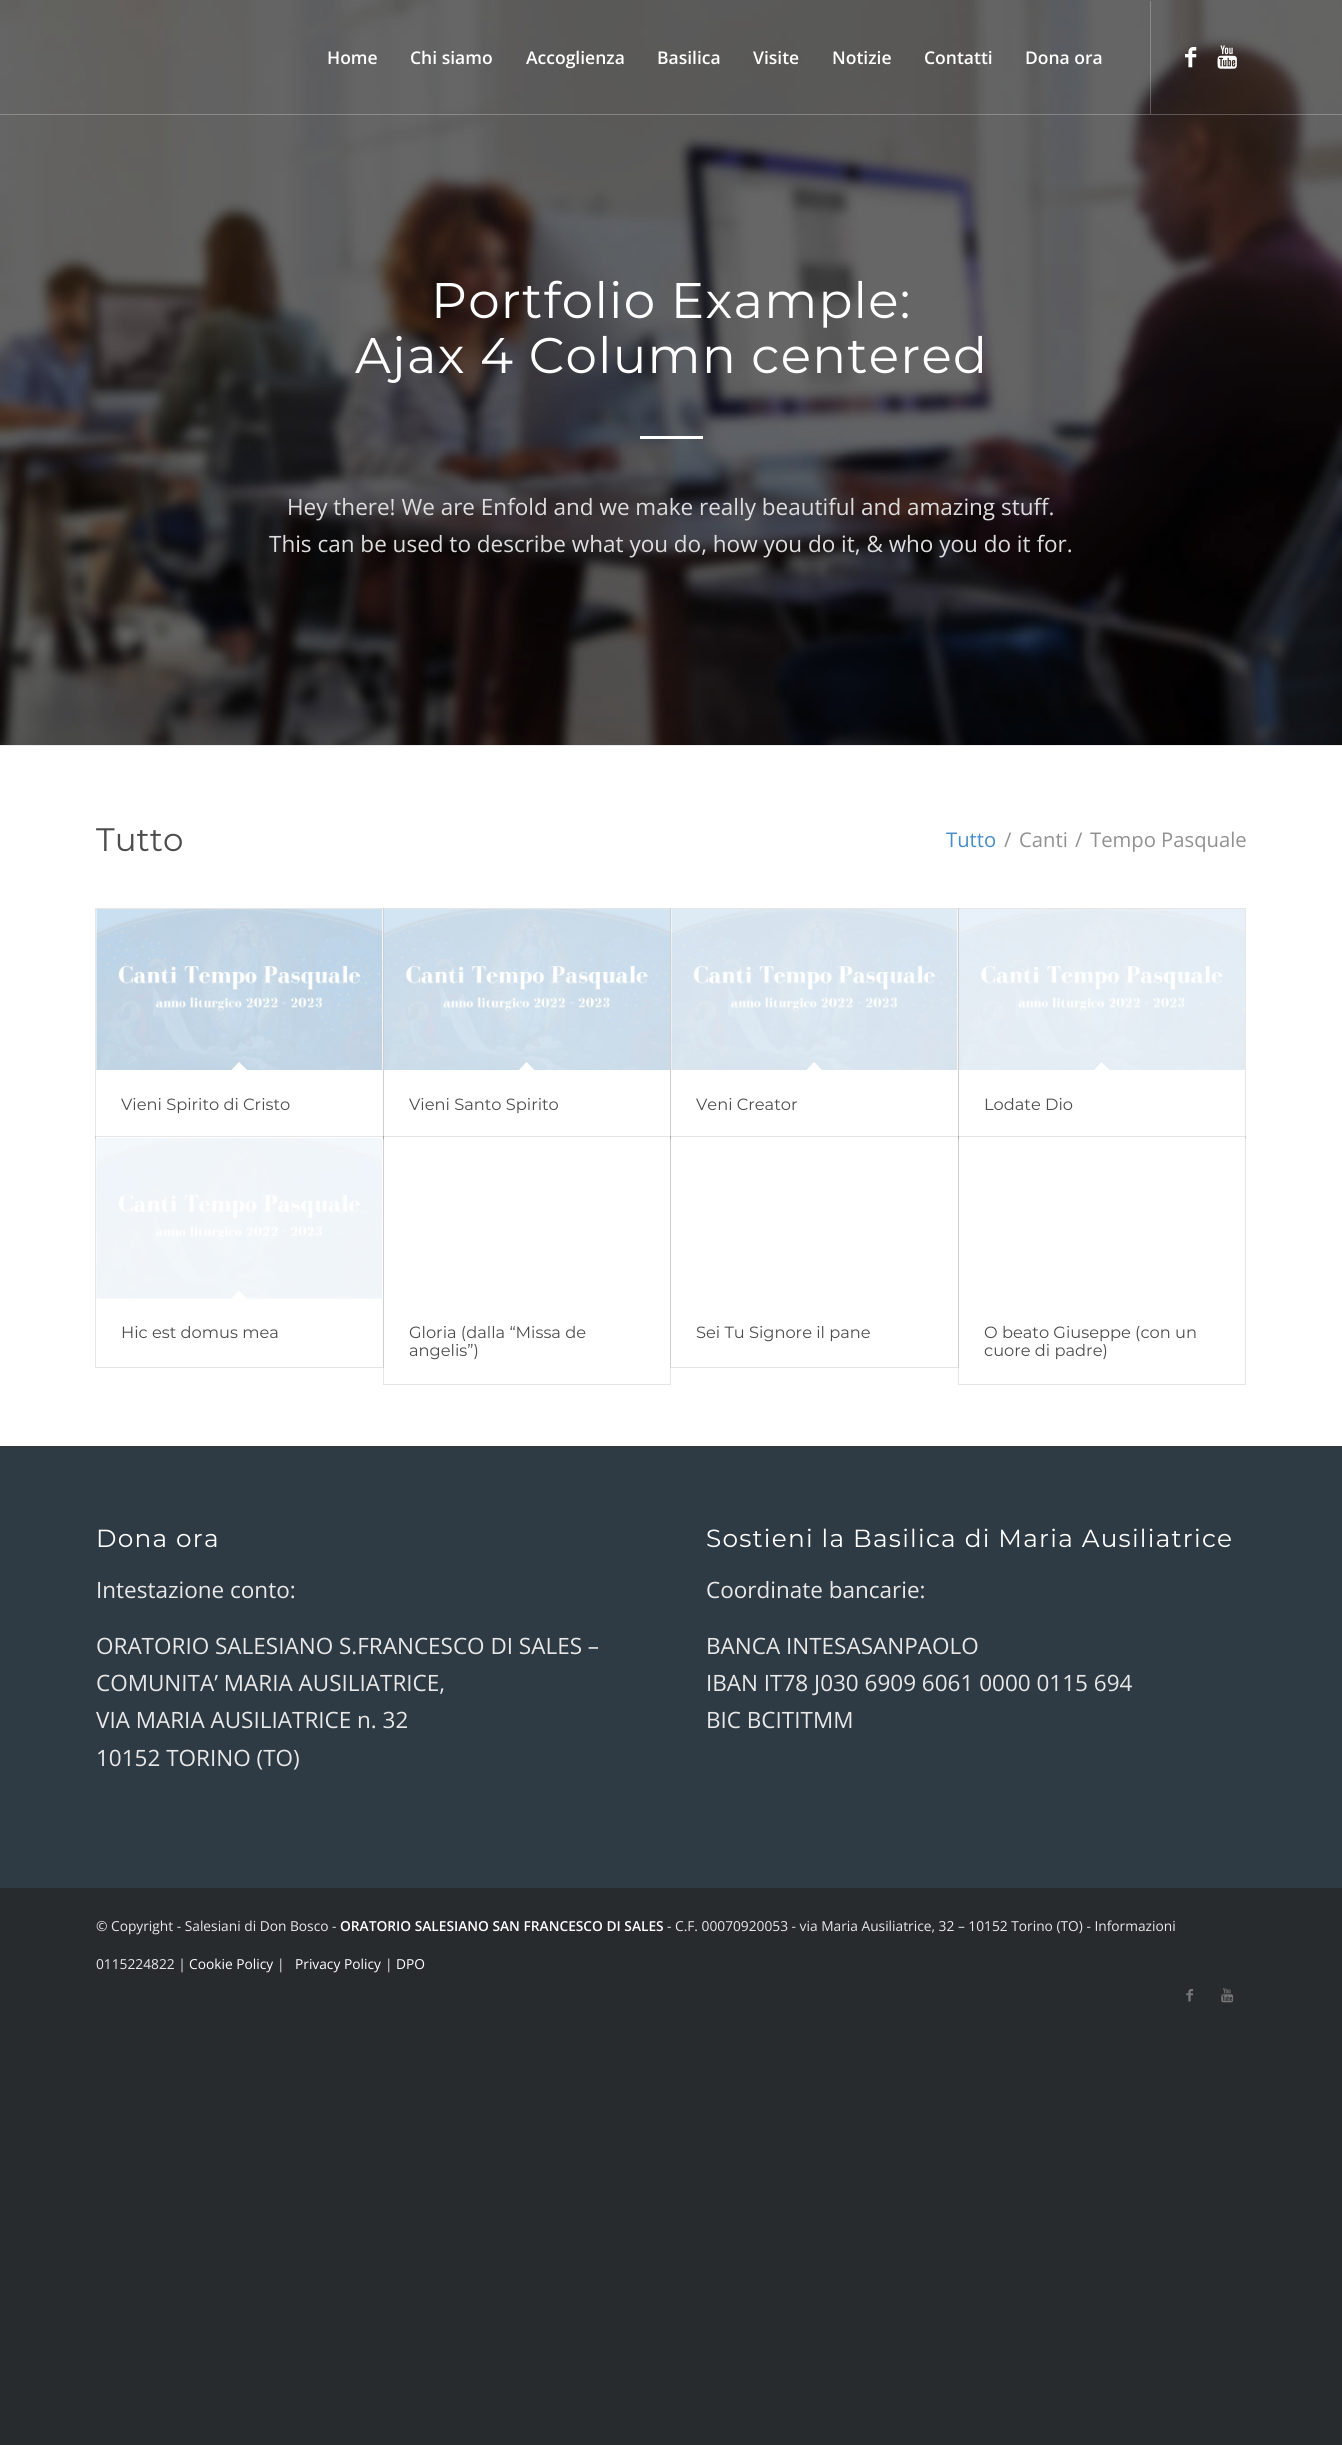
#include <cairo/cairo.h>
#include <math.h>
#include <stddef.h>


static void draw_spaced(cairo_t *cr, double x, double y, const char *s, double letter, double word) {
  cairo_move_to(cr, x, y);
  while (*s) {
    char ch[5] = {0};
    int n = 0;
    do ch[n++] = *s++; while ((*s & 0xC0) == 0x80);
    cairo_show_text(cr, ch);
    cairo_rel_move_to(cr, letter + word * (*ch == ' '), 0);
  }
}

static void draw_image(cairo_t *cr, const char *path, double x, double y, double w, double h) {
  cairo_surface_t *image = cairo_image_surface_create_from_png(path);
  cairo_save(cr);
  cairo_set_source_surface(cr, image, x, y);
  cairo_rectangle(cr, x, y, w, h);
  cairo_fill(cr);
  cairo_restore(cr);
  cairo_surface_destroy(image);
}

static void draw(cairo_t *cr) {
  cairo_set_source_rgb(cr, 40 / 255.0, 43 / 255.0, 46 / 255.0);
  cairo_paint(cr);
  draw_image(cr, "images/3.png", 0, 0, 1342, 745);
  cairo_set_source_rgba(cr, 1, 1, 1, 0.25);
  cairo_rectangle(cr, 0, 114, 1342, 1);
  cairo_fill(cr);
  cairo_rectangle(cr, 1150, 1, 1, 113);
  cairo_fill(cr);
  draw_image(cr, "images/1.png", 1185, 47, 12, 21);
  draw_image(cr, "images/2.png", 1217, 45, 20, 24);
  cairo_set_source_rgb(cr, 1, 1, 1);
  cairo_rectangle(cr, 0, 746, 1342, 700);
  cairo_fill(cr);
  cairo_rectangle(cr, 640, 436, 63, 3);
  cairo_fill(cr);
  cairo_set_source_rgb(cr, 235 / 255.0, 235 / 255.0, 235 / 255.0);
  cairo_rectangle(cr, 0, 745, 1342, 1);
  cairo_fill(cr);
  cairo_rectangle(cr, 95.5, 908.5, 288, 230);
  cairo_set_source_rgb(cr, 230 / 255.0, 230 / 255.0, 230 / 255.0);
  cairo_set_line_width(cr, 1);
  cairo_stroke(cr);
  draw_image(cr, "images/4.png", 96, 909, 287, 161);
  cairo_set_source_rgb(cr, 1, 1, 1);
  cairo_new_path(cr);
  cairo_move_to(cr, 239, 1062);
  cairo_line_to(cr, 248, 1071);
  cairo_line_to(cr, 239, 1079.5);
  cairo_line_to(cr, 230.5, 1071);
  cairo_close_path(cr);
  cairo_fill(cr);
  cairo_rectangle(cr, 383.5, 908.5, 287, 230);
  cairo_set_source_rgba(cr, 0, 0, 0, 0.1);
  cairo_stroke(cr);
  draw_image(cr, "images/5.png", 384, 909, 286, 161);
  cairo_set_source_rgb(cr, 1, 1, 1);
  cairo_new_path(cr);
  cairo_move_to(cr, 526.5, 1062);
  cairo_line_to(cr, 535.5, 1071);
  cairo_line_to(cr, 526.5, 1079.5);
  cairo_line_to(cr, 518, 1071);
  cairo_close_path(cr);
  cairo_fill(cr);
  cairo_rectangle(cr, 670.5, 908.5, 288, 230);
  cairo_set_source_rgba(cr, 0, 0, 0, 0.1);
  cairo_stroke(cr);
  draw_image(cr, "images/6.png", 671, 909, 287, 161);
  cairo_set_source_rgb(cr, 1, 1, 1);
  cairo_new_path(cr);
  cairo_move_to(cr, 814, 1062);
  cairo_line_to(cr, 823, 1071);
  cairo_line_to(cr, 814, 1079.5);
  cairo_line_to(cr, 805.5, 1071);
  cairo_close_path(cr);
  cairo_fill(cr);
  cairo_rectangle(cr, 958.5, 908.5, 287, 230);
  cairo_set_source_rgba(cr, 0, 0, 0, 0.1);
  cairo_stroke(cr);
  draw_image(cr, "images/7.png", 959, 909, 286, 161);
  cairo_set_source_rgb(cr, 1, 1, 1);
  cairo_new_path(cr);
  cairo_move_to(cr, 1101.5, 1062);
  cairo_line_to(cr, 1110.5, 1071);
  cairo_line_to(cr, 1101.5, 1079.5);
  cairo_line_to(cr, 1093, 1071);
  cairo_close_path(cr);
  cairo_fill(cr);
  cairo_rectangle(cr, 95.5, 1136.5, 288, 231);
  cairo_set_source_rgba(cr, 0, 0, 0, 0.1);
  cairo_stroke(cr);
  cairo_set_source_rgb(cr, 1, 1, 1);
  cairo_rectangle(cr, 96, 1138, 287, 1);
  cairo_fill(cr);
  draw_image(cr, "images/8.png", 96, 1138, 286, 161);
  cairo_new_path(cr);
  cairo_move_to(cr, 239, 1290.5);
  cairo_line_to(cr, 248, 1299.5);
  cairo_line_to(cr, 239, 1308.5);
  cairo_line_to(cr, 230.5, 1299.5);
  cairo_close_path(cr);
  cairo_fill(cr);
  cairo_rectangle(cr, 383.5, 1136.5, 287, 248);
  cairo_set_source_rgba(cr, 0, 0, 0, 0.1);
  cairo_stroke(cr);
  cairo_set_source_rgb(cr, 1, 1, 1);
  cairo_rectangle(cr, 384, 1138, 286, 1);
  cairo_fill(cr);
  cairo_rectangle(cr, 670.5, 1136.5, 288, 231);
  cairo_set_source_rgba(cr, 0, 0, 0, 0.1);
  cairo_stroke(cr);
  cairo_set_source_rgb(cr, 1, 1, 1);
  cairo_rectangle(cr, 671, 1138, 287, 1);
  cairo_fill(cr);
  cairo_rectangle(cr, 958.5, 1136.5, 287, 248);
  cairo_set_source_rgba(cr, 0, 0, 0, 0.1);
  cairo_stroke(cr);
  cairo_set_source_rgb(cr, 1, 1, 1);
  cairo_rectangle(cr, 959, 1138, 286, 1);
  cairo_fill(cr);
  cairo_set_source_rgb(cr, 46 / 255.0, 58 / 255.0, 68 / 255.0);
  cairo_rectangle(cr, 0, 1447, 1342, 441);
  cairo_fill(cr);
  cairo_set_source_rgb(cr, 53 / 255.0, 56 / 255.0, 60 / 255.0);
  cairo_rectangle(cr, 0, 1446, 1342, 1);
  cairo_fill(cr);
  draw_image(cr, "images/9.png", 1186, 1989, 8, 13);
  draw_image(cr, "images/10.png", 1221, 1988, 13, 15);
  cairo_select_font_face(cr, "Open Sans SemiBold", CAIRO_FONT_SLANT_NORMAL, CAIRO_FONT_WEIGHT_NORMAL);
  cairo_set_font_size(cr, 17.5);
  cairo_set_source_rgb(cr, 1, 1, 1);
  cairo_move_to(cr, 327, 64);
  cairo_show_text(cr, "Home");
  cairo_move_to(cr, 410, 64);
  cairo_show_text(cr, "Chi siamo");
  cairo_move_to(cr, 526, 64);
  cairo_show_text(cr, "Accoglienza");
  cairo_move_to(cr, 657, 64);
  cairo_show_text(cr, "Basilica");
  cairo_move_to(cr, 753, 64);
  cairo_show_text(cr, "Visite");
  cairo_move_to(cr, 832, 64);
  cairo_show_text(cr, "Notizie");
  cairo_move_to(cr, 924, 64);
  cairo_show_text(cr, "Contatti");
  cairo_move_to(cr, 1025, 64);
  cairo_show_text(cr, "Dona ora");
  cairo_select_font_face(cr, "Montserrat Thin", CAIRO_FONT_SLANT_NORMAL, CAIRO_FONT_WEIGHT_NORMAL);
  cairo_set_font_size(cr, 50);
  draw_spaced(cr, 431, 318, "Portfolio Example:", 1.25, 0);
  draw_spaced(cr, 355, 373, "Ajax 4 Column centered", 1.25, 0);
  cairo_select_font_face(cr, "Open Sans", CAIRO_FONT_SLANT_NORMAL, CAIRO_FONT_WEIGHT_NORMAL);
  cairo_set_font_size(cr, 22.5);
  cairo_set_source_rgb(cr, 221 / 255.0, 221 / 255.0, 221 / 255.0);
  cairo_move_to(cr, 287, 515);
  cairo_show_text(cr, "Hey there! We are Enfold and we make really beautiful and amazing stuff.");
  cairo_move_to(cr, 269, 552);
  cairo_show_text(cr, "This can be used to describe what you do, how you do it, & who you do it for.");
  cairo_select_font_face(cr, "Montserrat Thin", CAIRO_FONT_SLANT_NORMAL, CAIRO_FONT_WEIGHT_NORMAL);
  cairo_set_font_size(cr, 32.5);
  cairo_set_source_rgb(cr, 77 / 255.0, 77 / 255.0, 77 / 255.0);
  cairo_move_to(cr, 96, 851);
  cairo_show_text(cr, "Tutto");
  cairo_select_font_face(cr, "Open Sans", CAIRO_FONT_SLANT_NORMAL, CAIRO_FONT_WEIGHT_NORMAL);
  cairo_set_font_size(cr, 20.25);
  cairo_set_source_rgb(cr, 70 / 255.0, 140 / 255.0, 201 / 255.0);
  cairo_move_to(cr, 946, 847);
  cairo_show_text(cr, "Tutto");
  cairo_set_source_rgb(cr, 145 / 255.0, 145 / 255.0, 145 / 255.0);
  cairo_move_to(cr, 1004, 847);
  cairo_show_text(cr, "/");
  cairo_move_to(cr, 1019, 847);
  cairo_show_text(cr, "Canti");
  cairo_move_to(cr, 1075, 847);
  cairo_show_text(cr, "/");
  cairo_move_to(cr, 1090, 847);
  cairo_show_text(cr, "Tempo Pasquale");
  cairo_select_font_face(cr, "Montserrat Thin", CAIRO_FONT_SLANT_NORMAL, CAIRO_FONT_WEIGHT_NORMAL);
  cairo_set_font_size(cr, 16.25);
  cairo_set_source_rgb(cr, 77 / 255.0, 77 / 255.0, 77 / 255.0);
  cairo_move_to(cr, 121, 1110);
  cairo_show_text(cr, "Vieni Spirito di Cristo");
  cairo_move_to(cr, 409, 1110);
  cairo_show_text(cr, "Vieni Santo Spirito");
  cairo_move_to(cr, 696, 1110);
  cairo_show_text(cr, "Veni Creator");
  cairo_move_to(cr, 984, 1110);
  cairo_show_text(cr, "Lodate Dio");
  cairo_move_to(cr, 121, 1338);
  cairo_show_text(cr, "Hic est domus mea");
  cairo_move_to(cr, 409, 1338);
  cairo_show_text(cr, "Gloria (dalla “Missa de");
  cairo_move_to(cr, 409, 1356);
  cairo_show_text(cr, "angelis”)");
  cairo_move_to(cr, 696, 1338);
  cairo_show_text(cr, "Sei Tu Signore il pane");
  cairo_move_to(cr, 984, 1338);
  cairo_show_text(cr, "O beato Giuseppe (con un");
  cairo_move_to(cr, 984, 1356);
  cairo_show_text(cr, "cuore di padre)");
  cairo_set_font_size(cr, 24.75);
  cairo_set_source_rgb(cr, 1, 1, 1);
  draw_spaced(cr, 96, 1547, "Dona ora", 1.25, 0);
  cairo_select_font_face(cr, "Open Sans", CAIRO_FONT_SLANT_NORMAL, CAIRO_FONT_WEIGHT_NORMAL);
  cairo_set_font_size(cr, 22.5);
  cairo_set_source_rgb(cr, 232 / 255.0, 232 / 255.0, 232 / 255.0);
  cairo_move_to(cr, 96, 1598);
  cairo_show_text(cr, "Intestazione conto:");
  cairo_move_to(cr, 96, 1654);
  cairo_show_text(cr, "ORATORIO SALESIANO S.FRANCESCO DI SALES –");
  cairo_move_to(cr, 96, 1691);
  cairo_show_text(cr, "COMUNITA’ MARIA AUSILIATRICE,");
  cairo_move_to(cr, 96, 1728);
  cairo_show_text(cr, "VIA MARIA AUSILIATRICE n. 32");
  cairo_move_to(cr, 96, 1766);
  cairo_show_text(cr, "10152 TORINO (TO)");
  cairo_select_font_face(cr, "Montserrat Thin", CAIRO_FONT_SLANT_NORMAL, CAIRO_FONT_WEIGHT_NORMAL);
  cairo_set_font_size(cr, 24.75);
  cairo_set_source_rgb(cr, 1, 1, 1);
  draw_spaced(cr, 706, 1547, "Sostieni la Basilica di Maria Ausiliatrice", 1.25, 0);
  cairo_select_font_face(cr, "Open Sans", CAIRO_FONT_SLANT_NORMAL, CAIRO_FONT_WEIGHT_NORMAL);
  cairo_set_font_size(cr, 22.5);
  cairo_set_source_rgb(cr, 232 / 255.0, 232 / 255.0, 232 / 255.0);
  cairo_move_to(cr, 706, 1598);
  cairo_show_text(cr, "Coordinate bancarie:");
  cairo_move_to(cr, 706, 1654);
  cairo_show_text(cr, "BANCA INTESASANPAOLO");
  cairo_move_to(cr, 706, 1691);
  cairo_show_text(cr, "IBAN IT78 J030 6909 6061 0000 0115 694");
  cairo_move_to(cr, 706, 1728);
  cairo_show_text(cr, "BIC BCITITMM");
  cairo_set_font_size(cr, 13.75);
  cairo_move_to(cr, 96, 1931);
  cairo_show_text(cr, "© Copyright - Salesiani di Don Bosco -");
  cairo_select_font_face(cr, "Open Sans SemiBold", CAIRO_FONT_SLANT_NORMAL, CAIRO_FONT_WEIGHT_NORMAL);
  cairo_set_source_rgb(cr, 1, 1, 1);
  cairo_move_to(cr, 340, 1931);
  cairo_show_text(cr, "ORATORIO SALESIANO SAN FRANCESCO DI SALES");
  cairo_select_font_face(cr, "Open Sans", CAIRO_FONT_SLANT_NORMAL, CAIRO_FONT_WEIGHT_NORMAL);
  cairo_set_source_rgb(cr, 232 / 255.0, 232 / 255.0, 232 / 255.0);
  cairo_move_to(cr, 667, 1931);
  cairo_show_text(cr, "- C.F. 00070920053 - via Maria Ausiliatrice, 32 – 10152 Torino (TO) - Informazioni");
  cairo_move_to(cr, 96, 1969);
  cairo_show_text(cr, "0115224822 |");
  cairo_set_source_rgb(cr, 1, 1, 1);
  cairo_move_to(cr, 189, 1969);
  cairo_show_text(cr, "Cookie Policy");
  cairo_set_source_rgb(cr, 232 / 255.0, 232 / 255.0, 232 / 255.0);
  cairo_move_to(cr, 277, 1969);
  cairo_show_text(cr, "|");
  cairo_set_source_rgb(cr, 1, 1, 1);
  cairo_move_to(cr, 295, 1969);
  cairo_show_text(cr, "Privacy Policy");
  cairo_set_source_rgb(cr, 232 / 255.0, 232 / 255.0, 232 / 255.0);
  cairo_move_to(cr, 385, 1969);
  cairo_show_text(cr, "|");
  cairo_set_source_rgb(cr, 1, 1, 1);
  cairo_move_to(cr, 396, 1969);
  cairo_show_text(cr, "DPO");
}

int main(void) {
  cairo_surface_t *surface = cairo_image_surface_create(CAIRO_FORMAT_RGB24, 1342, 2445);
  cairo_t *cr = cairo_create(surface);
  cairo_font_options_t *options = cairo_font_options_create();
  cairo_font_options_set_hint_metrics(options, CAIRO_HINT_METRICS_OFF);
  cairo_font_options_set_hint_style(options, CAIRO_HINT_STYLE_NONE);
  cairo_set_font_options(cr, options);
  cairo_set_miter_limit(cr, 4);
  draw(cr);
  cairo_surface_write_to_png(surface, "out.png");
  cairo_font_options_destroy(options);
  cairo_destroy(cr);
  cairo_surface_destroy(surface);
  return 0;
}
